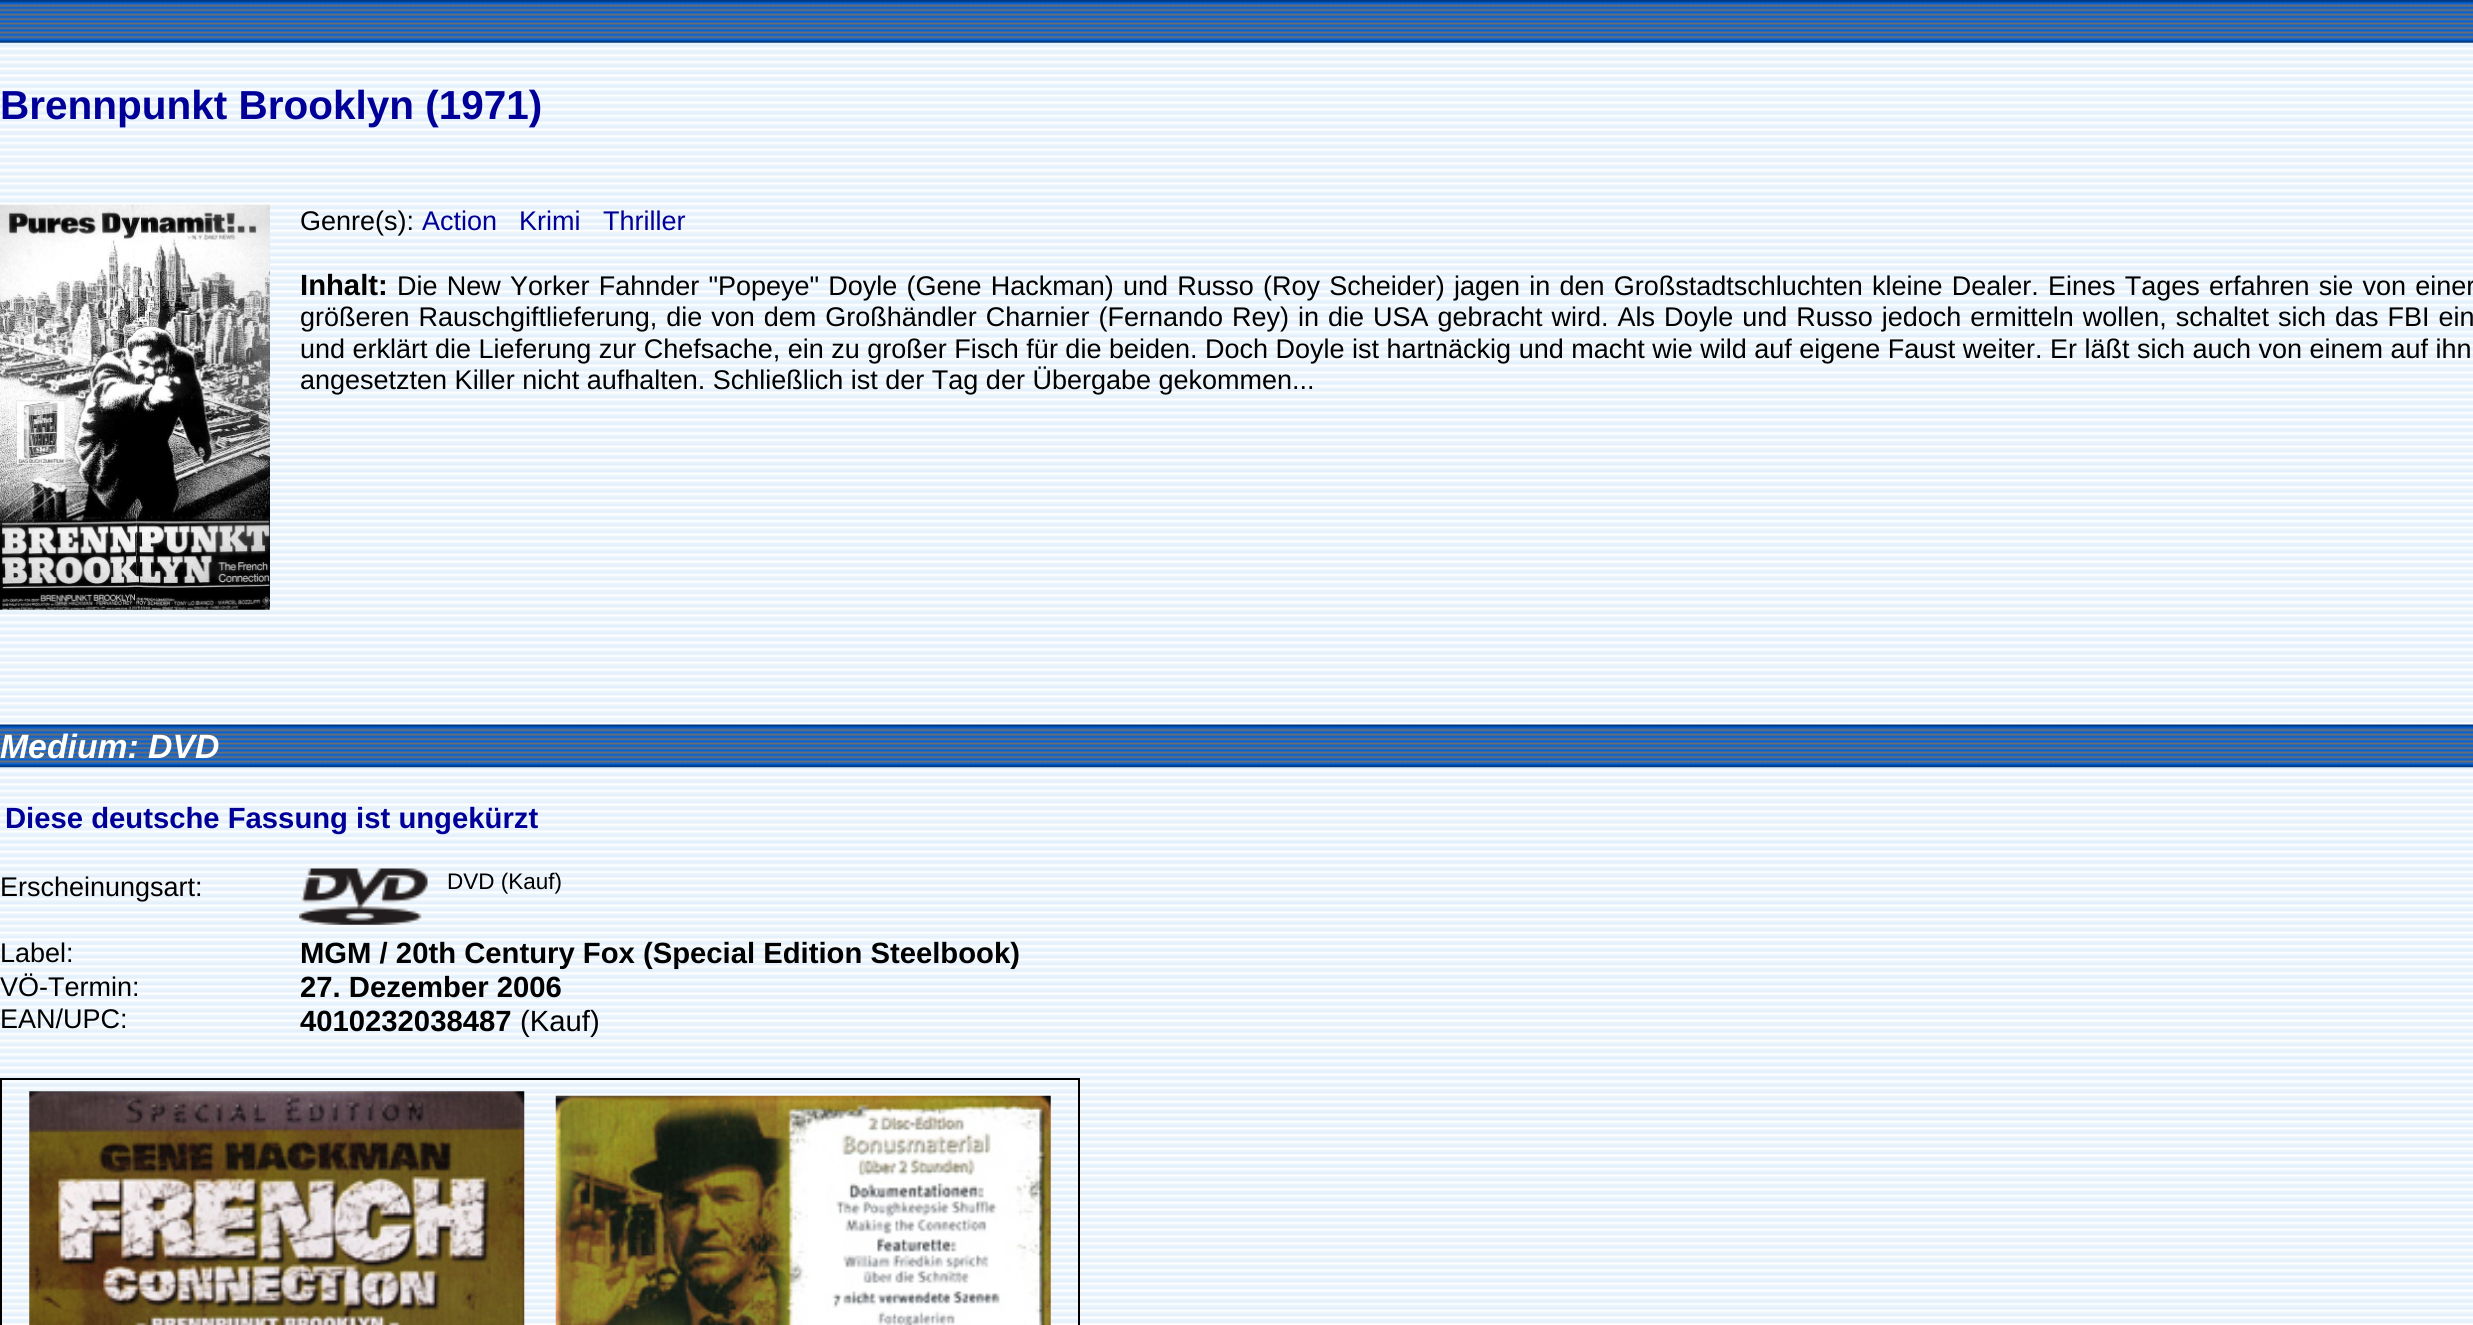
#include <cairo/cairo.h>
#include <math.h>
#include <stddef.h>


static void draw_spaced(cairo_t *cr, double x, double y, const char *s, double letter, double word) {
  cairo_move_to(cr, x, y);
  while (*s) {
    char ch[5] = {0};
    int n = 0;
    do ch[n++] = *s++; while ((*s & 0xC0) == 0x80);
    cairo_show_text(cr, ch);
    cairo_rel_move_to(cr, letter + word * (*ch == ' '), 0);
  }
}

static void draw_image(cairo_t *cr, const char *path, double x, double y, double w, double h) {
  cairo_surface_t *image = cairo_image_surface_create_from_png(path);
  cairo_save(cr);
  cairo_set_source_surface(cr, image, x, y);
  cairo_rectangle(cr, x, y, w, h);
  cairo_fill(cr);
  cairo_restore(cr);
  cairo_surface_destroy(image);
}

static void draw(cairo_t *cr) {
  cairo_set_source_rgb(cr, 1, 1, 1);
  cairo_paint(cr);
  draw_image(cr, "images/1.png", 0, 42, 2473, 1282);
  draw_image(cr, "images/2.png", 0, 0, 2473, 43);
  draw_image(cr, "images/3.png", 0, 204, 270, 406);
  draw_image(cr, "images/4.png", 0, 724, 2473, 44);
  draw_image(cr, "images/5.png", 299, 868, 129, 57);
  cairo_rectangle(cr, 1, 1079, 1078, 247);
  cairo_set_source_rgb(cr, 0, 0, 0);
  cairo_stroke(cr);
  draw_image(cr, "images/6.png", 29, 1091, 496, 234);
  draw_image(cr, "images/7.png", 555, 1095, 496, 230);
  cairo_select_font_face(cr, "Liberation Sans", CAIRO_FONT_SLANT_NORMAL, CAIRO_FONT_WEIGHT_BOLD);
  cairo_set_font_size(cr, 40.5);
  cairo_set_source_rgb(cr, 0, 0, 153 / 255.0);
  cairo_move_to(cr, 0, 119);
  cairo_show_text(cr, "Brennpunkt Brooklyn (1971)");
  cairo_select_font_face(cr, "Liberation Sans", CAIRO_FONT_SLANT_NORMAL, CAIRO_FONT_WEIGHT_NORMAL);
  cairo_set_font_size(cr, 27);
  cairo_set_source_rgb(cr, 0, 0, 0);
  cairo_move_to(cr, 300, 230);
  cairo_show_text(cr, "Genre(s):");
  cairo_set_source_rgb(cr, 0, 0, 153 / 255.0);
  cairo_move_to(cr, 422, 230);
  cairo_show_text(cr, "Action");
  cairo_move_to(cr, 519, 230);
  cairo_show_text(cr, "Krimi");
  cairo_move_to(cr, 603, 230);
  cairo_show_text(cr, "Thriller");
  cairo_select_font_face(cr, "Liberation Sans", CAIRO_FONT_SLANT_NORMAL, CAIRO_FONT_WEIGHT_BOLD);
  cairo_set_font_size(cr, 29.25);
  cairo_set_source_rgb(cr, 0, 0, 0);
  cairo_move_to(cr, 300, 295);
  cairo_show_text(cr, "Inhalt:");
  cairo_select_font_face(cr, "Liberation Sans", CAIRO_FONT_SLANT_NORMAL, CAIRO_FONT_WEIGHT_NORMAL);
  cairo_set_font_size(cr, 27);
  draw_spaced(cr, 397, 295, "Die New Yorker Fahnder \"Popeye\" Doyle (Gene Hackman) und Russo (Roy Scheider) jagen in den Großstadtschluchten kleine Dealer. Eines Tages erfahren sie von einer", 0, 1.7);
  draw_spaced(cr, 300, 326, "größeren Rauschgiftlieferung, die von dem Großhändler Charnier (Fernando Rey) in die USA gebracht wird. Als Doyle und Russo jedoch ermitteln wollen, schaltet sich das FBI ein", 0, 1.5);
  cairo_move_to(cr, 300, 358);
  cairo_show_text(cr, "und erklärt die Lieferung zur Chefsache, ein zu großer Fisch für die beiden. Doch Doyle ist hartnäckig und macht wie wild auf eigene Faust weiter. Er läßt sich auch von einem auf ihn");
  cairo_move_to(cr, 300, 389);
  cairo_show_text(cr, "angesetzten Killer nicht aufhalten. Schließlich ist der Tag der Übergabe gekommen...");
  cairo_select_font_face(cr, "Liberation Sans", CAIRO_FONT_SLANT_ITALIC, CAIRO_FONT_WEIGHT_BOLD);
  cairo_set_font_size(cr, 33.75);
  cairo_set_source_rgb(cr, 1, 1, 1);
  cairo_move_to(cr, 0, 758);
  cairo_show_text(cr, "Medium: DVD");
  cairo_select_font_face(cr, "Liberation Sans", CAIRO_FONT_SLANT_NORMAL, CAIRO_FONT_WEIGHT_BOLD);
  cairo_set_font_size(cr, 29.25);
  cairo_set_source_rgb(cr, 0, 0, 153 / 255.0);
  cairo_move_to(cr, 5, 828);
  cairo_show_text(cr, "Diese deutsche Fassung ist ungekürzt");
  cairo_select_font_face(cr, "Liberation Sans", CAIRO_FONT_SLANT_NORMAL, CAIRO_FONT_WEIGHT_NORMAL);
  cairo_set_font_size(cr, 27);
  cairo_set_source_rgb(cr, 0, 0, 0);
  cairo_move_to(cr, 0, 896);
  cairo_show_text(cr, "Erscheinungsart:");
  cairo_set_font_size(cr, 22.5);
  cairo_move_to(cr, 447, 889);
  cairo_show_text(cr, "DVD (Kauf)");
  cairo_set_font_size(cr, 27);
  cairo_move_to(cr, 0, 962);
  cairo_show_text(cr, "Label:");
  cairo_select_font_face(cr, "Liberation Sans", CAIRO_FONT_SLANT_NORMAL, CAIRO_FONT_WEIGHT_BOLD);
  cairo_set_font_size(cr, 29.25);
  cairo_move_to(cr, 300, 963);
  cairo_show_text(cr, "MGM / 20th Century Fox (Special Edition Steelbook)");
  cairo_select_font_face(cr, "Liberation Sans", CAIRO_FONT_SLANT_NORMAL, CAIRO_FONT_WEIGHT_NORMAL);
  cairo_set_font_size(cr, 27);
  cairo_move_to(cr, 0, 996);
  cairo_show_text(cr, "VÖ-Termin:");
  cairo_select_font_face(cr, "Liberation Sans", CAIRO_FONT_SLANT_NORMAL, CAIRO_FONT_WEIGHT_BOLD);
  cairo_set_font_size(cr, 29.25);
  cairo_move_to(cr, 300, 997);
  cairo_show_text(cr, "27. Dezember 2006");
  cairo_select_font_face(cr, "Liberation Sans", CAIRO_FONT_SLANT_NORMAL, CAIRO_FONT_WEIGHT_NORMAL);
  cairo_set_font_size(cr, 27);
  cairo_move_to(cr, 0, 1028);
  cairo_show_text(cr, "EAN/UPC:");
  cairo_select_font_face(cr, "Liberation Sans", CAIRO_FONT_SLANT_NORMAL, CAIRO_FONT_WEIGHT_BOLD);
  cairo_set_font_size(cr, 29.25);
  cairo_move_to(cr, 300, 1031);
  cairo_show_text(cr, "4010232038487");
  cairo_select_font_face(cr, "Liberation Sans", CAIRO_FONT_SLANT_NORMAL, CAIRO_FONT_WEIGHT_NORMAL);
  cairo_move_to(cr, 520, 1031);
  cairo_show_text(cr, "(Kauf)");
}

int main(void) {
  cairo_surface_t *surface = cairo_image_surface_create(CAIRO_FORMAT_RGB24, 2473, 1325);
  cairo_t *cr = cairo_create(surface);
  cairo_font_options_t *options = cairo_font_options_create();
  cairo_font_options_set_hint_metrics(options, CAIRO_HINT_METRICS_OFF);
  cairo_font_options_set_hint_style(options, CAIRO_HINT_STYLE_NONE);
  cairo_set_font_options(cr, options);
  cairo_set_miter_limit(cr, 4);
  draw(cr);
  cairo_surface_write_to_png(surface, "out.png");
  cairo_font_options_destroy(options);
  cairo_destroy(cr);
  cairo_surface_destroy(surface);
  return 0;
}
